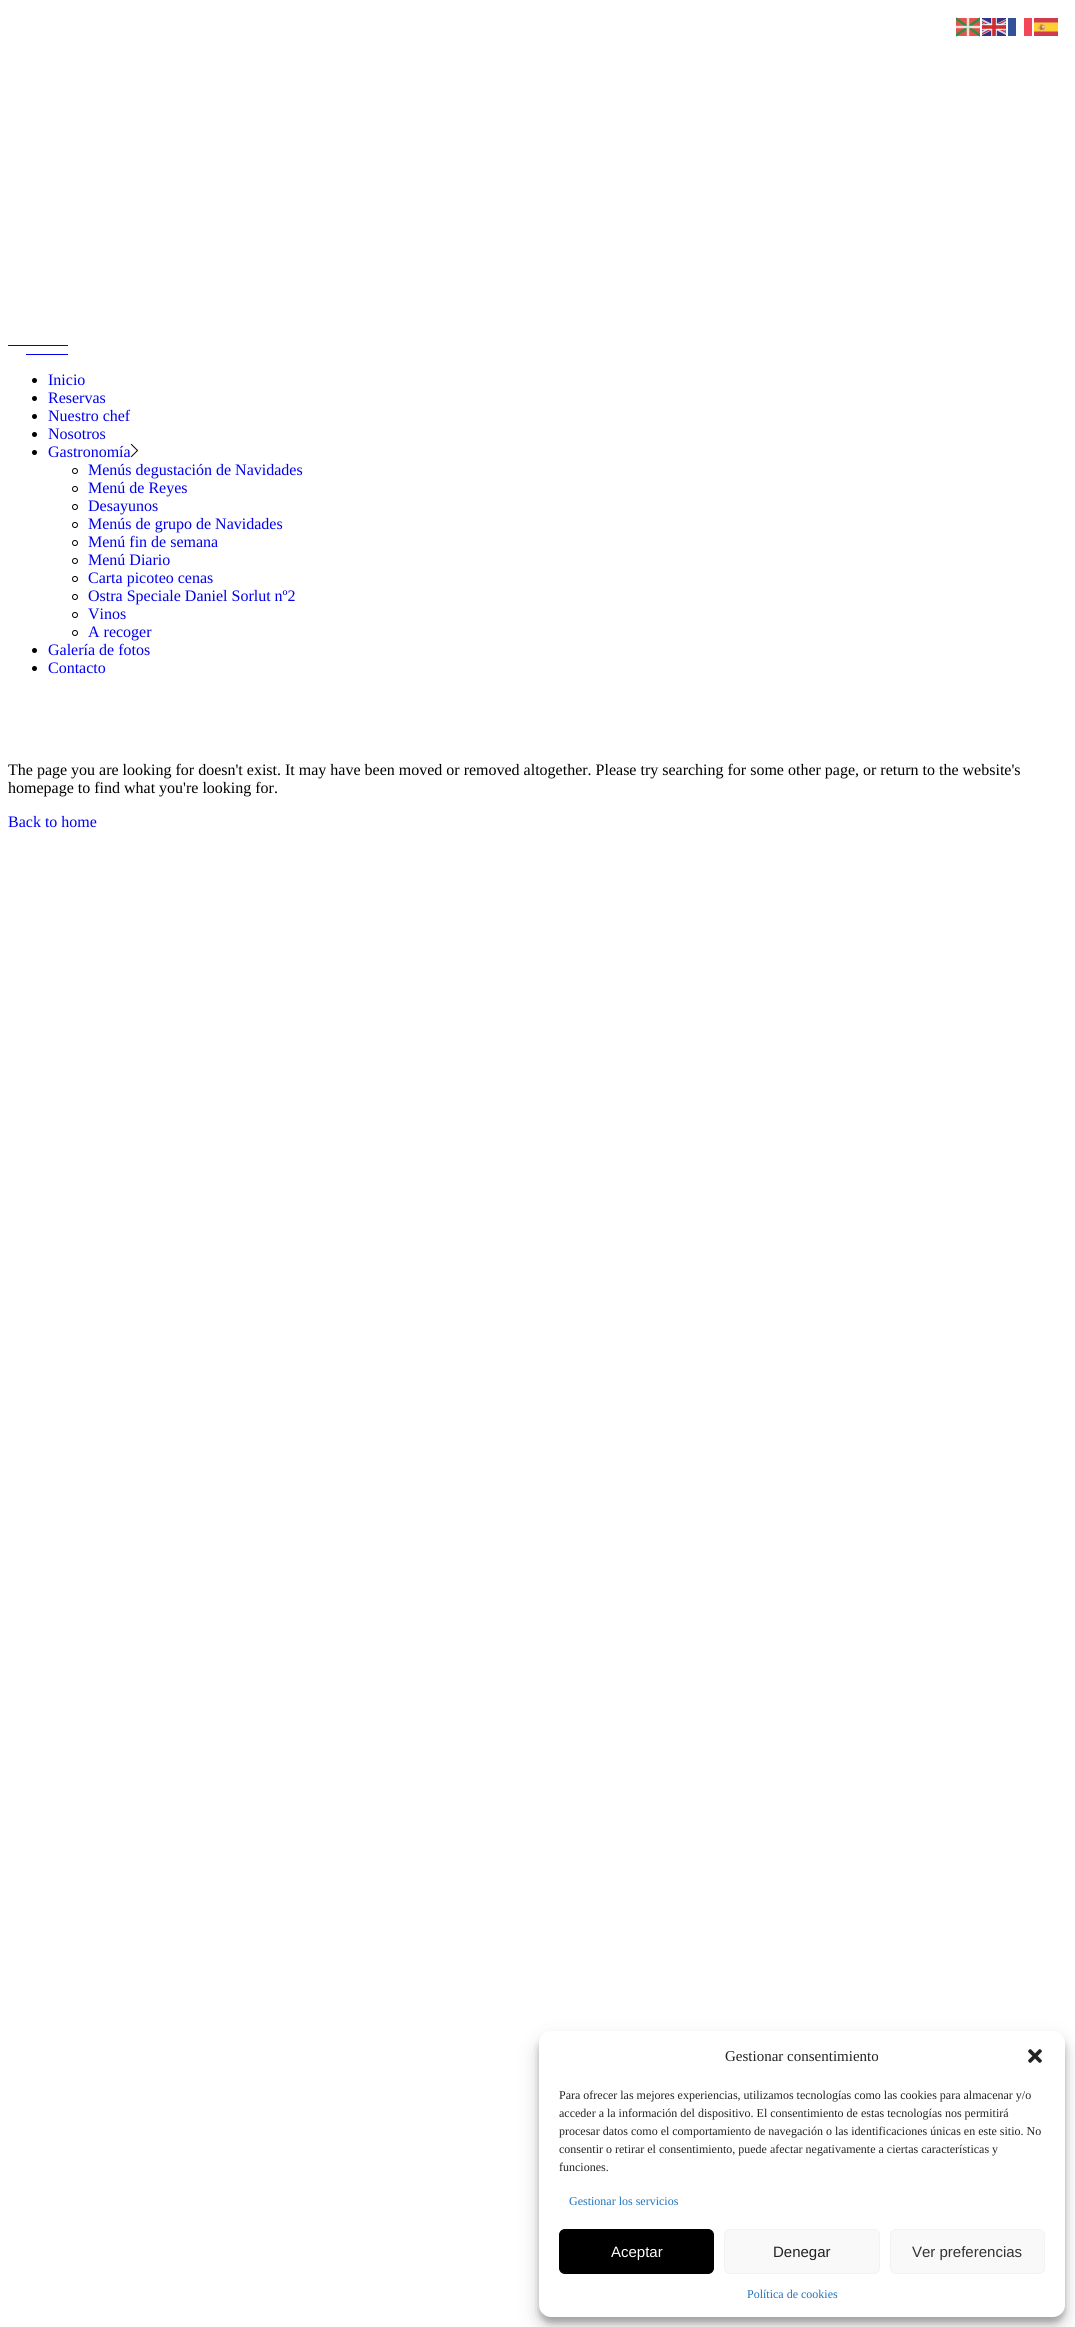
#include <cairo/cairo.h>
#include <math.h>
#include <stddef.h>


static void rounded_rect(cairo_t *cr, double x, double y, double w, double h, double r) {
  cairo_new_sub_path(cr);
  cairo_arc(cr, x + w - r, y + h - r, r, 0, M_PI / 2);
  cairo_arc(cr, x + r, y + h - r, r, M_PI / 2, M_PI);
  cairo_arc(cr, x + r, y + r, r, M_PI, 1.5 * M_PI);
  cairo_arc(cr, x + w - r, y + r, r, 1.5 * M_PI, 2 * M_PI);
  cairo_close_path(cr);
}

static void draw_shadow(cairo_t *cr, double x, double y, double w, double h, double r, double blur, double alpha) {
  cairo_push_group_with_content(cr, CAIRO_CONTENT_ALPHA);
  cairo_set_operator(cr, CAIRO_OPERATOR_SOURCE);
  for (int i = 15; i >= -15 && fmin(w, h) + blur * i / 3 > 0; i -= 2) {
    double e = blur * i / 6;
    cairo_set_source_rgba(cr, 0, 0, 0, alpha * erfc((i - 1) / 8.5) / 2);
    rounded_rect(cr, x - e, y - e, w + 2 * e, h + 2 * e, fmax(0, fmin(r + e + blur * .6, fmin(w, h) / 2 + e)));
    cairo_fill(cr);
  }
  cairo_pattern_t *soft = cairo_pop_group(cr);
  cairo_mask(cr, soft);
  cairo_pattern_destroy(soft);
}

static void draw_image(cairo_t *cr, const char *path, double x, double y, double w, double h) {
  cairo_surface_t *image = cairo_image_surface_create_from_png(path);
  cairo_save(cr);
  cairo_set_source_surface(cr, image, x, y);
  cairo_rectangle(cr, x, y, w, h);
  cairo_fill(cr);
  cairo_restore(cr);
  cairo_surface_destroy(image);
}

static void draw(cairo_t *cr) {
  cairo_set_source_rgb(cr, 1, 1, 1);
  cairo_paint(cr);
  draw_image(cr, "images/1.png", 956, 17, 24, 20);
  draw_image(cr, "images/2.png", 982, 18, 24, 18);
  cairo_set_source_rgb(cr, 51 / 255.0, 81 / 255.0, 153 / 255.0);
  cairo_rectangle(cr, 1008, 18, 8, 18);
  cairo_fill(cr);
  cairo_set_source_rgb(cr, 245 / 255.0, 70 / 255.0, 89 / 255.0);
  cairo_rectangle(cr, 1024, 18, 8, 18);
  cairo_fill(cr);
  draw_image(cr, "images/3.png", 1034, 18, 24, 18);
  cairo_set_source_rgb(cr, 0, 0, 238 / 255.0);
  cairo_rectangle(cr, 8, 345, 60, 1);
  cairo_fill(cr);
  cairo_rectangle(cr, 26, 354, 42, 1);
  cairo_fill(cr);
  cairo_set_source_rgb(cr, 0, 0, 0);
  cairo_arc(cr, 34.5, 380.5, 2.5, 0, 2 * M_PI);
  cairo_fill(cr);
  cairo_arc(cr, 34.5, 398.5, 2.5, 0, 2 * M_PI);
  cairo_fill(cr);
  cairo_arc(cr, 34.5, 416.5, 2.5, 0, 2 * M_PI);
  cairo_fill(cr);
  cairo_arc(cr, 34.5, 434.5, 2.5, 0, 2 * M_PI);
  cairo_fill(cr);
  cairo_arc(cr, 34.5, 452.5, 2.5, 0, 2 * M_PI);
  cairo_fill(cr);
  cairo_new_path(cr);
  cairo_move_to(cr, 131.5, 456.5);
  cairo_line_to(cr, 137.5, 450.5);
  cairo_line_to(cr, 131.5, 444.5);
  cairo_set_line_width(cr, 1);
  cairo_set_line_cap(cr, CAIRO_LINE_CAP_SQUARE);
  cairo_set_line_join(cr, CAIRO_LINE_JOIN_ROUND);
  cairo_stroke(cr);
  cairo_arc(cr, 75, 471, 2.5, 0, 2 * M_PI);
  cairo_set_line_cap(cr, CAIRO_LINE_CAP_BUTT);
  cairo_set_line_join(cr, CAIRO_LINE_JOIN_MITER);
  cairo_stroke(cr);
  cairo_arc(cr, 75, 489, 2.5, 0, 2 * M_PI);
  cairo_stroke(cr);
  cairo_arc(cr, 75, 507, 2.5, 0, 2 * M_PI);
  cairo_stroke(cr);
  cairo_arc(cr, 75, 525, 2.5, 0, 2 * M_PI);
  cairo_stroke(cr);
  cairo_arc(cr, 75, 543, 2.5, 0, 2 * M_PI);
  cairo_stroke(cr);
  cairo_arc(cr, 75, 561, 2.5, 0, 2 * M_PI);
  cairo_stroke(cr);
  cairo_arc(cr, 75, 579, 2.5, 0, 2 * M_PI);
  cairo_stroke(cr);
  cairo_arc(cr, 75, 597, 2.5, 0, 2 * M_PI);
  cairo_stroke(cr);
  cairo_arc(cr, 75, 615, 2.5, 0, 2 * M_PI);
  cairo_stroke(cr);
  cairo_arc(cr, 75, 633, 2.5, 0, 2 * M_PI);
  cairo_stroke(cr);
  cairo_arc(cr, 34.5, 650.5, 2.5, 0, 2 * M_PI);
  cairo_fill(cr);
  cairo_arc(cr, 34.5, 668.5, 2.5, 0, 2 * M_PI);
  cairo_fill(cr);
  cairo_set_source_rgb(cr, 0, 0, 0);
  draw_shadow(cr, 539, 2037, 526, 286, 12, 3, 0.23);
  draw_shadow(cr, 539, 2041, 526, 286, 12, 10, 0.19);
  cairo_set_source_rgb(cr, 1, 1, 1);
  rounded_rect(cr, 539, 2031, 526, 286, 12);
  cairo_fill(cr);
  draw_image(cr, "images/4.png", 1028, 2049, 14, 14);
  cairo_set_source_rgb(cr, 0, 0, 0);
  rounded_rect(cr, 559.5, 2229.5, 154, 44, 5.5);
  cairo_fill_preserve(cr);
  cairo_stroke(cr);
  cairo_set_source_rgb(cr, 249 / 255.0, 249 / 255.0, 249 / 255.0);
  rounded_rect(cr, 724.5, 2229.5, 155, 44, 5.5);
  cairo_fill_preserve(cr);
  cairo_set_source_rgb(cr, 242 / 255.0, 242 / 255.0, 242 / 255.0);
  cairo_stroke(cr);
  cairo_set_source_rgb(cr, 249 / 255.0, 249 / 255.0, 249 / 255.0);
  rounded_rect(cr, 890.5, 2229.5, 154, 44, 5.5);
  cairo_fill_preserve(cr);
  cairo_set_source_rgb(cr, 242 / 255.0, 242 / 255.0, 242 / 255.0);
  cairo_stroke(cr);
  cairo_select_font_face(cr, "Liberation Serif", CAIRO_FONT_SLANT_NORMAL, CAIRO_FONT_WEIGHT_NORMAL);
  cairo_set_font_size(cr, 16);
  cairo_set_source_rgb(cr, 0, 0, 238 / 255.0);
  cairo_move_to(cr, 48, 385);
  cairo_show_text(cr, "Inicio");
  cairo_move_to(cr, 48, 403);
  cairo_show_text(cr, "Reservas");
  cairo_move_to(cr, 48, 421);
  cairo_show_text(cr, "Nuestro chef");
  cairo_move_to(cr, 48, 439);
  cairo_show_text(cr, "Nosotros");
  cairo_move_to(cr, 48, 457);
  cairo_show_text(cr, "Gastronomía");
  cairo_move_to(cr, 88, 475);
  cairo_show_text(cr, "Menús degustación de Navidades");
  cairo_move_to(cr, 88, 493);
  cairo_show_text(cr, "Menú de Reyes");
  cairo_move_to(cr, 88, 511);
  cairo_show_text(cr, "Desayunos");
  cairo_move_to(cr, 88, 529);
  cairo_show_text(cr, "Menús de grupo de Navidades");
  cairo_move_to(cr, 88, 547);
  cairo_show_text(cr, "Menú fin de semana");
  cairo_move_to(cr, 88, 565);
  cairo_show_text(cr, "Menú Diario");
  cairo_move_to(cr, 88, 583);
  cairo_show_text(cr, "Carta picoteo cenas");
  cairo_move_to(cr, 88, 601);
  cairo_show_text(cr, "Ostra Speciale Daniel Sorlut nº2");
  cairo_move_to(cr, 88, 619);
  cairo_show_text(cr, "Vinos");
  cairo_move_to(cr, 88, 637);
  cairo_show_text(cr, "A recoger");
  cairo_move_to(cr, 48, 655);
  cairo_show_text(cr, "Galería de fotos");
  cairo_move_to(cr, 48, 673);
  cairo_show_text(cr, "Contacto");
  cairo_set_source_rgb(cr, 0, 0, 0);
  cairo_move_to(cr, 8, 775);
  cairo_show_text(cr, "The page you are looking for doesn't exist. It may have been moved or removed altogether. Please try searching for some other page, or return to the website's");
  cairo_move_to(cr, 8, 793);
  cairo_show_text(cr, "homepage to find what you're looking for.");
  cairo_set_source_rgb(cr, 0, 0, 238 / 255.0);
  cairo_move_to(cr, 8, 827);
  cairo_show_text(cr, "Back to home");
  cairo_set_font_size(cr, 15);
  cairo_set_source_rgb(cr, 34 / 255.0, 34 / 255.0, 34 / 255.0);
  cairo_move_to(cr, 725, 2061);
  cairo_show_text(cr, "Gestionar consentimiento");
  cairo_set_font_size(cr, 12);
  cairo_move_to(cr, 559, 2099);
  cairo_show_text(cr, "Para ofrecer las mejores experiencias, utilizamos tecnologías como las cookies para almacenar y/o");
  cairo_move_to(cr, 559, 2117);
  cairo_show_text(cr, "acceder a la información del dispositivo. El consentimiento de estas tecnologías nos permitirá");
  cairo_move_to(cr, 559, 2135);
  cairo_show_text(cr, "procesar datos como el comportamiento de navegación o las identificaciones únicas en este sitio. No");
  cairo_move_to(cr, 559, 2153);
  cairo_show_text(cr, "consentir o retirar el consentimiento, puede afectar negativamente a ciertas características y");
  cairo_move_to(cr, 559, 2171);
  cairo_show_text(cr, "funciones.");
  cairo_set_source_rgb(cr, 30 / 255.0, 115 / 255.0, 190 / 255.0);
  cairo_move_to(cr, 569, 2205);
  cairo_show_text(cr, "Gestionar los servicios");
  cairo_select_font_face(cr, "Liberation Sans", CAIRO_FONT_SLANT_NORMAL, CAIRO_FONT_WEIGHT_NORMAL);
  cairo_set_font_size(cr, 15);
  cairo_set_source_rgb(cr, 1, 1, 1);
  cairo_move_to(cr, 611, 2257);
  cairo_show_text(cr, "Aceptar");
  cairo_set_source_rgb(cr, 34 / 255.0, 34 / 255.0, 34 / 255.0);
  cairo_move_to(cr, 773, 2257);
  cairo_show_text(cr, "Denegar");
  cairo_set_source_rgb(cr, 51 / 255.0, 51 / 255.0, 51 / 255.0);
  cairo_move_to(cr, 912, 2257);
  cairo_show_text(cr, "Ver preferencias");
  cairo_select_font_face(cr, "Liberation Serif", CAIRO_FONT_SLANT_NORMAL, CAIRO_FONT_WEIGHT_NORMAL);
  cairo_set_font_size(cr, 12);
  cairo_set_source_rgb(cr, 30 / 255.0, 115 / 255.0, 190 / 255.0);
  cairo_move_to(cr, 747, 2298);
  cairo_show_text(cr, "Política de cookies");
}

int main(void) {
  cairo_surface_t *surface = cairo_image_surface_create(CAIRO_FORMAT_RGB24, 1075, 2327);
  cairo_t *cr = cairo_create(surface);
  cairo_font_options_t *options = cairo_font_options_create();
  cairo_font_options_set_hint_metrics(options, CAIRO_HINT_METRICS_OFF);
  cairo_font_options_set_hint_style(options, CAIRO_HINT_STYLE_NONE);
  cairo_set_font_options(cr, options);
  cairo_set_miter_limit(cr, 4);
  draw(cr);
  cairo_surface_write_to_png(surface, "out.png");
  cairo_font_options_destroy(options);
  cairo_destroy(cr);
  cairo_surface_destroy(surface);
  return 0;
}
